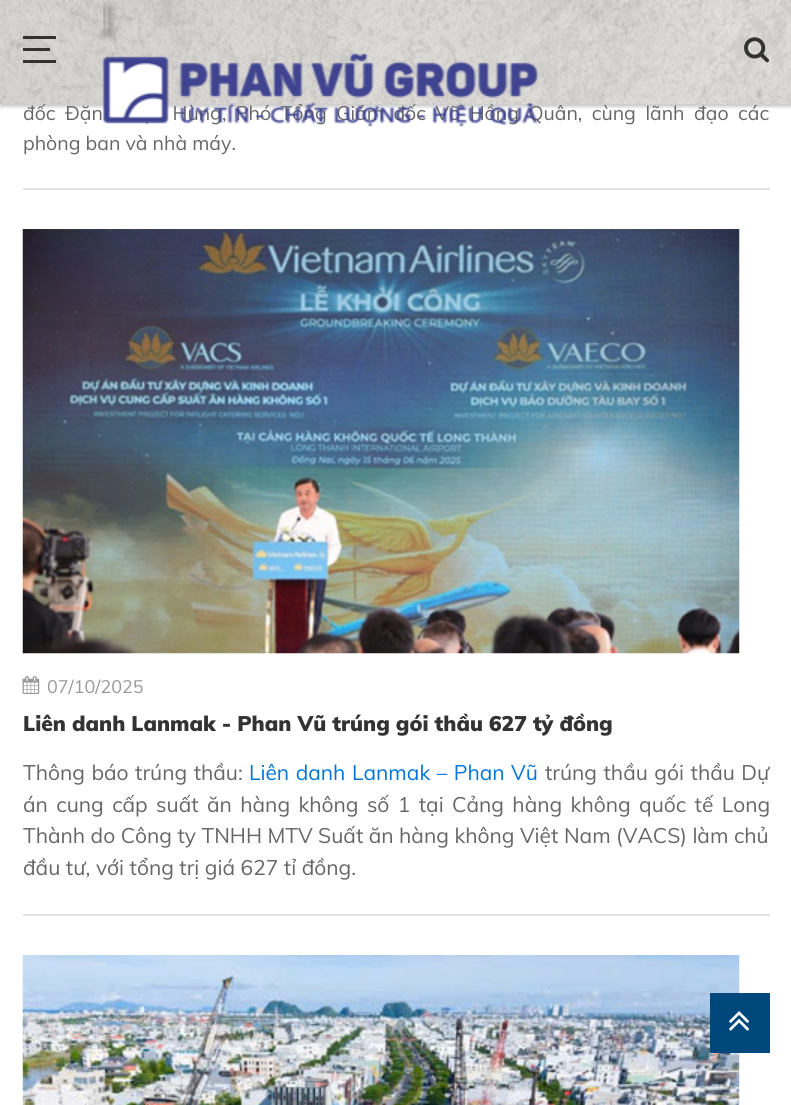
#include <cairo/cairo.h>
#include <math.h>
#include <stddef.h>


static void draw_spaced(cairo_t *cr, double x, double y, const char *s, double letter, double word) {
  cairo_move_to(cr, x, y);
  while (*s) {
    char ch[5] = {0};
    int n = 0;
    do ch[n++] = *s++; while ((*s & 0xC0) == 0x80);
    cairo_show_text(cr, ch);
    cairo_rel_move_to(cr, letter + word * (*ch == ' '), 0);
  }
}

static void rounded_rect(cairo_t *cr, double x, double y, double w, double h, double r) {
  cairo_new_sub_path(cr);
  cairo_arc(cr, x + w - r, y + h - r, r, 0, M_PI / 2);
  cairo_arc(cr, x + r, y + h - r, r, M_PI / 2, M_PI);
  cairo_arc(cr, x + r, y + r, r, M_PI, 1.5 * M_PI);
  cairo_arc(cr, x + w - r, y + r, r, 1.5 * M_PI, 2 * M_PI);
  cairo_close_path(cr);
}

static void draw_shadow(cairo_t *cr, double x, double y, double w, double h, double r, double blur, double alpha) {
  cairo_push_group_with_content(cr, CAIRO_CONTENT_ALPHA);
  cairo_set_operator(cr, CAIRO_OPERATOR_SOURCE);
  for (int i = 15; i >= -15 && fmin(w, h) + blur * i / 3 > 0; i -= 2) {
    double e = blur * i / 6;
    cairo_set_source_rgba(cr, 0, 0, 0, alpha * erfc((i - 1) / 8.5) / 2);
    rounded_rect(cr, x - e, y - e, w + 2 * e, h + 2 * e, fmax(0, fmin(r + e + blur * .6, fmin(w, h) / 2 + e)));
    cairo_fill(cr);
  }
  cairo_pattern_t *soft = cairo_pop_group(cr);
  cairo_mask(cr, soft);
  cairo_pattern_destroy(soft);
}

static void draw_image(cairo_t *cr, const char *path, double x, double y, double w, double h) {
  cairo_surface_t *image = cairo_image_surface_create_from_png(path);
  cairo_save(cr);
  cairo_set_source_surface(cr, image, x, y);
  cairo_rectangle(cr, x, y, w, h);
  cairo_fill(cr);
  cairo_restore(cr);
  cairo_surface_destroy(image);
}

static void draw(cairo_t *cr) {
  cairo_set_source_rgb(cr, 1, 1, 1);
  cairo_paint(cr);
  cairo_set_source_rgb(cr, 0, 0, 0);
  draw_shadow(cr, 0, 2, 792, 105, 0, 1.5, 0.2);
  draw_image(cr, "images/1.png", 0, 0, 791, 104);
  cairo_set_source_rgb(cr, 51 / 255.0, 51 / 255.0, 51 / 255.0);
  cairo_rectangle(cr, 23, 36, 33, 3);
  cairo_fill(cr);
  cairo_rectangle(cr, 23, 48, 27, 3);
  cairo_fill(cr);
  cairo_rectangle(cr, 23, 60, 33, 3);
  cairo_fill(cr);
  cairo_save(cr);
  cairo_set_fill_rule(cr, CAIRO_FILL_RULE_EVEN_ODD);
  cairo_new_path(cr);
  cairo_move_to(cr, 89, 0);
  cairo_line_to(cr, 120, 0);
  cairo_line_to(cr, 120, 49);
  cairo_line_to(cr, 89, 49);
  cairo_close_path(cr);
  cairo_move_to(cr, 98, -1);
  cairo_line_to(cr, 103, -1);
  cairo_line_to(cr, 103, 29);
  cairo_line_to(cr, 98, 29);
  cairo_close_path(cr);
  cairo_clip(cr);
  cairo_set_source_rgb(cr, 0, 0, 0);
  draw_shadow(cr, 102, 6, 5, 30, 0, 4, 0.2);
  cairo_restore(cr);
  cairo_save(cr);
  cairo_set_fill_rule(cr, CAIRO_FILL_RULE_EVEN_ODD);
  cairo_new_path(cr);
  cairo_move_to(cr, 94, 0);
  cairo_line_to(cr, 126, 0);
  cairo_line_to(cr, 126, 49);
  cairo_line_to(cr, 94, 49);
  cairo_close_path(cr);
  cairo_move_to(cr, 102, -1);
  cairo_line_to(cr, 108, -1);
  cairo_line_to(cr, 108, 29);
  cairo_line_to(cr, 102, 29);
  cairo_close_path(cr);
  cairo_clip(cr);
  cairo_set_source_rgb(cr, 0, 0, 0);
  draw_shadow(cr, 107, 6, 6, 30, 0, 4, 0.2);
  cairo_restore(cr);
  draw_image(cr, "images/3.png", 744, 37, 26, 26);
  cairo_set_source_rgb(cr, 225 / 255.0, 225 / 255.0, 225 / 255.0);
  cairo_rectangle(cr, 23, 188, 747, 2);
  cairo_fill(cr);
  cairo_rectangle(cr, 23, 914, 747, 2);
  cairo_fill(cr);
  draw_image(cr, "images/4.png", 22, 229, 718, 425);
  draw_image(cr, "images/5.png", 22, 676, 18, 19);
  draw_image(cr, "images/6.png", 22, 955, 718, 150);
  cairo_set_source_rgb(cr, 0, 71 / 255.0, 123 / 255.0);
  cairo_rectangle(cr, 710, 993, 60, 60);
  cairo_fill(cr);
  draw_image(cr, "images/7.png", 729, 1011, 21, 20);
  cairo_select_font_face(cr, "Muli", CAIRO_FONT_SLANT_NORMAL, CAIRO_FONT_WEIGHT_NORMAL);
  cairo_set_font_size(cr, 19.5);
  cairo_set_source_rgb(cr, 102 / 255.0, 102 / 255.0, 102 / 255.0);
  draw_spaced(cr, 23, 120, "đốc Đặn", 0, 4.4);
  draw_spaced(cr, 141, 120, "ện Hùng, Phó Tổng Giám đốc Võ Hồng Quân, cùng lãnh đạo các", 0, 4.4);
  draw_image(cr, "images/2.png", 102, 53, 436, 74);
  cairo_move_to(cr, 23, 150);
  cairo_show_text(cr, "phòng ban và nhà máy.");
  cairo_set_font_size(cr, 18);
  cairo_set_source_rgb(cr, 153 / 255.0, 153 / 255.0, 153 / 255.0);
  cairo_move_to(cr, 47, 693);
  cairo_show_text(cr, "07/10/2025");
  cairo_select_font_face(cr, "Muli Black", CAIRO_FONT_SLANT_NORMAL, CAIRO_FONT_WEIGHT_NORMAL);
  cairo_set_font_size(cr, 21);
  cairo_set_source_rgb(cr, 51 / 255.0, 51 / 255.0, 51 / 255.0);
  cairo_move_to(cr, 23, 731);
  cairo_show_text(cr, "Liên danh Lanmak - Phan Vũ trúng gói thầu 627 tỷ đồng");
  cairo_select_font_face(cr, "Muli", CAIRO_FONT_SLANT_NORMAL, CAIRO_FONT_WEIGHT_NORMAL);
  cairo_set_source_rgb(cr, 102 / 255.0, 102 / 255.0, 102 / 255.0);
  draw_spaced(cr, 23, 780, "Thông báo trúng thầu:", 0, 1);
  cairo_set_source_rgb(cr, 2 / 255.0, 117 / 255.0, 216 / 255.0);
  draw_spaced(cr, 249, 780, "Liên danh", 0, 1);
  draw_spaced(cr, 352, 780, "Lanmak – Phan Vũ", 0, 1);
  cairo_set_source_rgb(cr, 102 / 255.0, 102 / 255.0, 102 / 255.0);
  draw_spaced(cr, 545, 780, "trúng thầu gói thầu Dự", 0, 1);
  draw_spaced(cr, 23, 812, "án cung cấp suất ăn hàng không số 1 tại Cảng hàng không quốc tế Long", 0, 2.9);
  cairo_move_to(cr, 23, 843);
  cairo_show_text(cr, "Thành do Công ty TNHH MTV Suất ăn hàng không Việt Nam (VACS) làm chủ");
  cairo_move_to(cr, 23, 875);
  cairo_show_text(cr, "đầu tư, với tổng trị giá 627 tỉ đồng.");
}

int main(void) {
  cairo_surface_t *surface = cairo_image_surface_create(CAIRO_FORMAT_RGB24, 791, 1105);
  cairo_t *cr = cairo_create(surface);
  cairo_font_options_t *options = cairo_font_options_create();
  cairo_font_options_set_hint_metrics(options, CAIRO_HINT_METRICS_OFF);
  cairo_font_options_set_hint_style(options, CAIRO_HINT_STYLE_NONE);
  cairo_set_font_options(cr, options);
  cairo_set_miter_limit(cr, 4);
  draw(cr);
  cairo_surface_write_to_png(surface, "out.png");
  cairo_font_options_destroy(options);
  cairo_destroy(cr);
  cairo_surface_destroy(surface);
  return 0;
}
